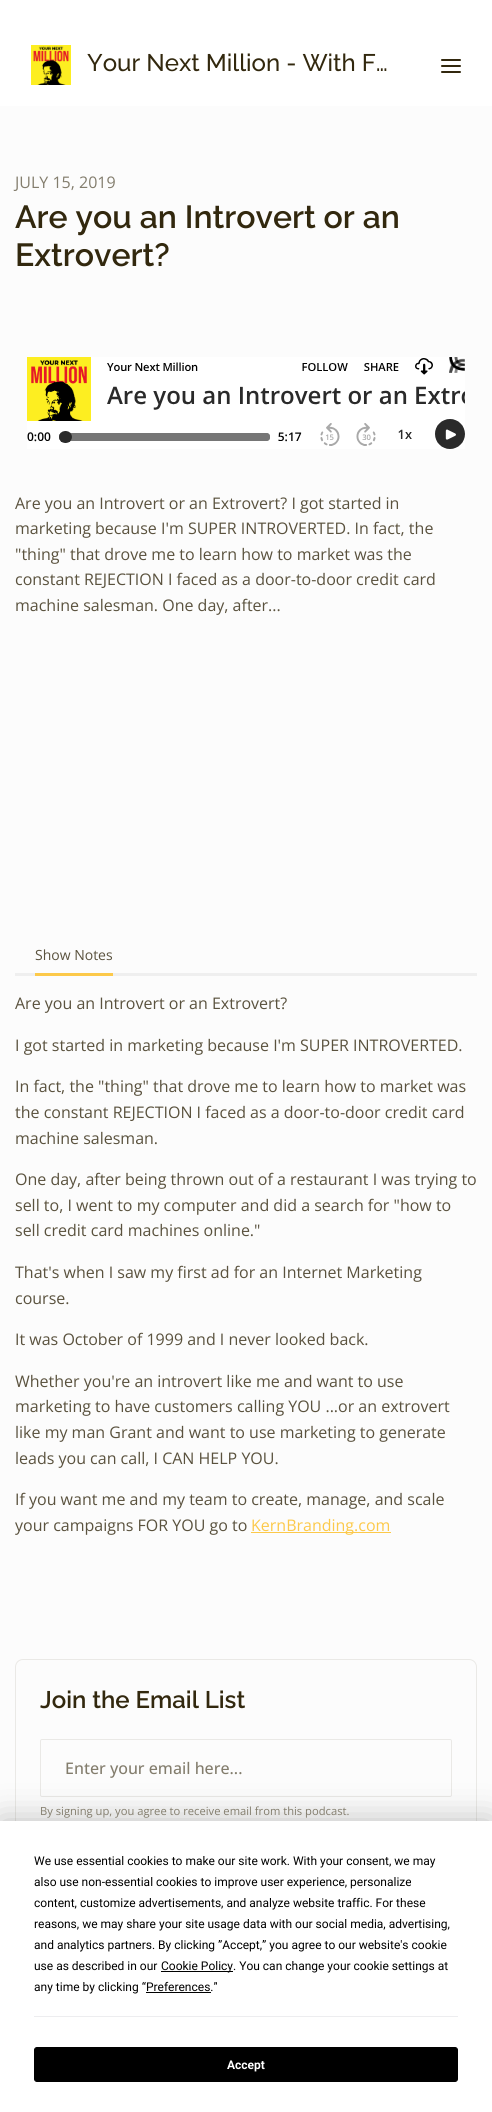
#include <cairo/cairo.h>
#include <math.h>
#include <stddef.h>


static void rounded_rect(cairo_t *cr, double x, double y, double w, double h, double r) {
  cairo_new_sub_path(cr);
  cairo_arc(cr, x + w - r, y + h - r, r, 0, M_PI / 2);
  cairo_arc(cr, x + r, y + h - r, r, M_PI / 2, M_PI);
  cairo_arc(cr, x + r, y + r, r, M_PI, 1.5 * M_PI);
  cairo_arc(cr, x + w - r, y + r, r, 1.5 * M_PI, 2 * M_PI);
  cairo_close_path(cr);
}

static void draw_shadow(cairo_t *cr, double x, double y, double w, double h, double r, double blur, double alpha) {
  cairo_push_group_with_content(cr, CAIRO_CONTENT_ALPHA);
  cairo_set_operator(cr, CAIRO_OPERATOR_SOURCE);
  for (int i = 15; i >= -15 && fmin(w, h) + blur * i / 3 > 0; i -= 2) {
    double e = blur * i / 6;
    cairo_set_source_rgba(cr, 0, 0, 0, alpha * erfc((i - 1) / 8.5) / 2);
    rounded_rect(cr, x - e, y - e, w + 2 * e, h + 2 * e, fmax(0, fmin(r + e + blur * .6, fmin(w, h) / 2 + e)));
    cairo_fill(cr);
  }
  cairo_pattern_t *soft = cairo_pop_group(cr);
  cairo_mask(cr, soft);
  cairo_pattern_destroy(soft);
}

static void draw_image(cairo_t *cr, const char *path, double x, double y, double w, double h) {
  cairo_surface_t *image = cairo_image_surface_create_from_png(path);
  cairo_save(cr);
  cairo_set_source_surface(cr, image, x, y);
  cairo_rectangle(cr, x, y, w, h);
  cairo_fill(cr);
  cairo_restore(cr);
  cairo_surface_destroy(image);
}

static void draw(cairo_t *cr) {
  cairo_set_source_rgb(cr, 1, 1, 1);
  cairo_paint(cr);
  cairo_set_source_rgb(cr, 252 / 255.0, 252 / 255.0, 252 / 255.0);
  cairo_rectangle(cr, 0, 106, 492, 1715);
  cairo_fill(cr);
  draw_image(cr, "images/1.png", 31, 45, 40, 40);
  cairo_set_source_rgb(cr, 50 / 255.0, 40 / 255.0, 14 / 255.0);
  rounded_rect(cr, 441, 59, 20, 2, 1);
  cairo_fill(cr);
  rounded_rect(cr, 441, 65, 20, 2, 1);
  cairo_fill(cr);
  rounded_rect(cr, 441, 71, 20, 2, 1);
  cairo_fill(cr);
  draw_image(cr, "images/2.png", 27, 357, 438, 92);
  cairo_set_source_rgb(cr, 239 / 255.0, 239 / 255.0, 239 / 255.0);
  cairo_rectangle(cr, 15, 973, 462, 3);
  cairo_fill(cr);
  cairo_set_source_rgb(cr, 252 / 255.0, 201 / 255.0, 74 / 255.0);
  cairo_rectangle(cr, 35, 973, 78, 3);
  cairo_fill(cr);
  cairo_rectangle(cr, 251, 1532, 140, 1);
  cairo_fill(cr);
  rounded_rect(cr, 15.5, 1659.5, 461, 251, 7.5);
  cairo_set_source_rgb(cr, 234 / 255.0, 233 / 255.0, 230 / 255.0);
  cairo_set_line_width(cr, 1);
  cairo_stroke(cr);
  rounded_rect(cr, 40.5, 1739.5, 411, 57, 1.5);
  cairo_stroke(cr);
  cairo_set_source_rgb(cr, 0, 0, 0);
  draw_shadow(cr, 0, 1821, 492, 291, 0, 17.5, 0.25);
  cairo_set_source_rgb(cr, 1, 1, 1);
  cairo_rectangle(cr, 0, 1821, 492, 291);
  cairo_fill(cr);
  cairo_set_source_rgb(cr, 0, 0, 0);
  cairo_rectangle(cr, 161, 1971, 72, 1);
  cairo_fill(cr);
  cairo_rectangle(cr, 146, 1992, 65, 1);
  cairo_fill(cr);
  cairo_set_source_rgb(cr, 237 / 255.0, 237 / 255.0, 239 / 255.0);
  cairo_rectangle(cr, 34, 2016, 424, 1);
  cairo_fill(cr);
  cairo_set_source_rgb(cr, 0, 0, 0);
  rounded_rect(cr, 34.5, 2047.5, 423, 34, 2.5);
  cairo_fill_preserve(cr);
  cairo_stroke(cr);
  cairo_select_font_face(cr, "Raleway Medium", CAIRO_FONT_SLANT_NORMAL, CAIRO_FONT_WEIGHT_NORMAL);
  cairo_set_font_size(cr, 24);
  cairo_set_source_rgb(cr, 50 / 255.0, 40 / 255.0, 14 / 255.0);
  cairo_move_to(cr, 87, 71);
  cairo_show_text(cr, "Your Next Million - With F…");
  cairo_select_font_face(cr, "Open Sans", CAIRO_FONT_SLANT_NORMAL, CAIRO_FONT_WEIGHT_NORMAL);
  cairo_set_font_size(cr, 16);
  cairo_set_source_rgb(cr, 131 / 255.0, 125 / 255.0, 109 / 255.0);
  cairo_move_to(cr, 15, 188);
  cairo_show_text(cr, "JULY 15, 2019");
  cairo_select_font_face(cr, "Raleway SemiBold", CAIRO_FONT_SLANT_NORMAL, CAIRO_FONT_WEIGHT_NORMAL);
  cairo_set_font_size(cr, 32);
  cairo_set_source_rgb(cr, 50 / 255.0, 40 / 255.0, 14 / 255.0);
  cairo_move_to(cr, 15, 228);
  cairo_show_text(cr, "Are you an Introvert or an");
  cairo_move_to(cr, 15, 266);
  cairo_show_text(cr, "Extrovert?");
  cairo_select_font_face(cr, "Open Sans", CAIRO_FONT_SLANT_NORMAL, CAIRO_FONT_WEIGHT_NORMAL);
  cairo_set_font_size(cr, 16);
  cairo_set_source_rgb(cr, 90 / 255.0, 82 / 255.0, 62 / 255.0);
  cairo_move_to(cr, 15, 509);
  cairo_show_text(cr, "Are you an Introvert or an Extrovert? I got started in");
  cairo_move_to(cr, 15, 534);
  cairo_show_text(cr, "marketing because I'm SUPER INTROVERTED. In fact, the");
  cairo_move_to(cr, 15, 560);
  cairo_show_text(cr, "\"thing\" that drove me to learn how to market was the");
  cairo_move_to(cr, 15, 585);
  cairo_show_text(cr, "constant REJECTION I faced as a door-to-door credit card");
  cairo_move_to(cr, 15, 611);
  cairo_show_text(cr, "machine salesman. One day, after...");
  cairo_set_font_size(cr, 14);
  cairo_move_to(cr, 35, 960);
  cairo_show_text(cr, "Show Notes");
  cairo_set_font_size(cr, 16);
  cairo_move_to(cr, 15, 1009);
  cairo_show_text(cr, "Are you an Introvert or an Extrovert?");
  cairo_move_to(cr, 15, 1051);
  cairo_show_text(cr, "I got started in marketing because I'm SUPER INTROVERTED.");
  cairo_move_to(cr, 15, 1092);
  cairo_show_text(cr, "In fact, the \"thing\" that drove me to learn how to market was");
  cairo_move_to(cr, 15, 1118);
  cairo_show_text(cr, "the constant REJECTION I faced as a door-to-door credit card");
  cairo_move_to(cr, 15, 1144);
  cairo_show_text(cr, "machine salesman.");
  cairo_move_to(cr, 15, 1185);
  cairo_show_text(cr, "One day, after being thrown out of a restaurant I was trying to");
  cairo_move_to(cr, 15, 1211);
  cairo_show_text(cr, "sell to, I went to my computer and did a search for \"how to");
  cairo_move_to(cr, 15, 1236);
  cairo_show_text(cr, "sell credit card machines online.\"");
  cairo_move_to(cr, 15, 1278);
  cairo_show_text(cr, "That's when I saw my first ad for an Internet Marketing");
  cairo_move_to(cr, 15, 1304);
  cairo_show_text(cr, "course.");
  cairo_move_to(cr, 15, 1345);
  cairo_show_text(cr, "It was October of 1999 and I never looked back.");
  cairo_move_to(cr, 15, 1387);
  cairo_show_text(cr, "Whether you're an introvert like me and want to use");
  cairo_move_to(cr, 15, 1412);
  cairo_show_text(cr, "marketing to have customers calling YOU ...or an extrovert");
  cairo_move_to(cr, 15, 1438);
  cairo_show_text(cr, "like my man Grant and want to use marketing to generate");
  cairo_move_to(cr, 15, 1464);
  cairo_show_text(cr, "leads you can call, I CAN HELP YOU.");
  cairo_move_to(cr, 15, 1505);
  cairo_show_text(cr, "If you want me and my team to create, manage, and scale");
  cairo_move_to(cr, 15, 1531);
  cairo_show_text(cr, "your campaigns FOR YOU go to");
  cairo_set_source_rgb(cr, 252 / 255.0, 201 / 255.0, 74 / 255.0);
  cairo_move_to(cr, 251, 1531);
  cairo_show_text(cr, "KernBranding.com");
  cairo_select_font_face(cr, "Raleway SemiBold", CAIRO_FONT_SLANT_NORMAL, CAIRO_FONT_WEIGHT_NORMAL);
  cairo_set_font_size(cr, 24);
  cairo_set_source_rgb(cr, 50 / 255.0, 40 / 255.0, 14 / 255.0);
  cairo_move_to(cr, 40, 1708);
  cairo_show_text(cr, "Join the Email List");
  cairo_select_font_face(cr, "Open Sans Medium", CAIRO_FONT_SLANT_NORMAL, CAIRO_FONT_WEIGHT_NORMAL);
  cairo_set_font_size(cr, 16);
  cairo_set_source_rgb(cr, 131 / 255.0, 125 / 255.0, 109 / 255.0);
  cairo_move_to(cr, 65, 1774);
  cairo_show_text(cr, "Enter your email here...");
  cairo_select_font_face(cr, "Open Sans", CAIRO_FONT_SLANT_NORMAL, CAIRO_FONT_WEIGHT_NORMAL);
  cairo_set_font_size(cr, 11.2);
  cairo_move_to(cr, 40, 1815);
  cairo_show_text(cr, "By signing up, you agree to receive email from this podcast.");
  cairo_select_font_face(cr, "Roboto", CAIRO_FONT_SLANT_NORMAL, CAIRO_FONT_WEIGHT_NORMAL);
  cairo_set_font_size(cr, 12);
  cairo_set_source_rgb(cr, 0, 0, 0);
  cairo_move_to(cr, 34, 1865);
  cairo_show_text(cr, "We use essential cookies to make our site work. With your consent, we may");
  cairo_move_to(cr, 34, 1886);
  cairo_show_text(cr, "also use non-essential cookies to improve user experience, personalize");
  cairo_move_to(cr, 34, 1907);
  cairo_show_text(cr, "content, customize advertisements, and analyze website traffic. For these");
  cairo_move_to(cr, 34, 1928);
  cairo_show_text(cr, "reasons, we may share your site usage data with our social media, advertising,");
  cairo_move_to(cr, 34, 1949);
  cairo_show_text(cr, "and analytics partners. By clicking ”Accept,” you agree to our website's cookie");
  cairo_move_to(cr, 34, 1970);
  cairo_show_text(cr, "use as described in our");
  cairo_move_to(cr, 161, 1970);
  cairo_show_text(cr, "Cookie Policy. You can change your cookie settings at");
  cairo_move_to(cr, 34, 1991);
  cairo_show_text(cr, "any time by clicking “Preferences.”");
  cairo_select_font_face(cr, "Roboto", CAIRO_FONT_SLANT_NORMAL, CAIRO_FONT_WEIGHT_BOLD);
  cairo_set_source_rgb(cr, 1, 1, 1);
  cairo_move_to(cr, 227, 2069);
  cairo_show_text(cr, "Accept");
}

int main(void) {
  cairo_surface_t *surface = cairo_image_surface_create(CAIRO_FORMAT_RGB24, 492, 2112);
  cairo_t *cr = cairo_create(surface);
  cairo_font_options_t *options = cairo_font_options_create();
  cairo_font_options_set_hint_metrics(options, CAIRO_HINT_METRICS_OFF);
  cairo_font_options_set_hint_style(options, CAIRO_HINT_STYLE_NONE);
  cairo_set_font_options(cr, options);
  cairo_set_miter_limit(cr, 4);
  draw(cr);
  cairo_surface_write_to_png(surface, "out.png");
  cairo_font_options_destroy(options);
  cairo_destroy(cr);
  cairo_surface_destroy(surface);
  return 0;
}
